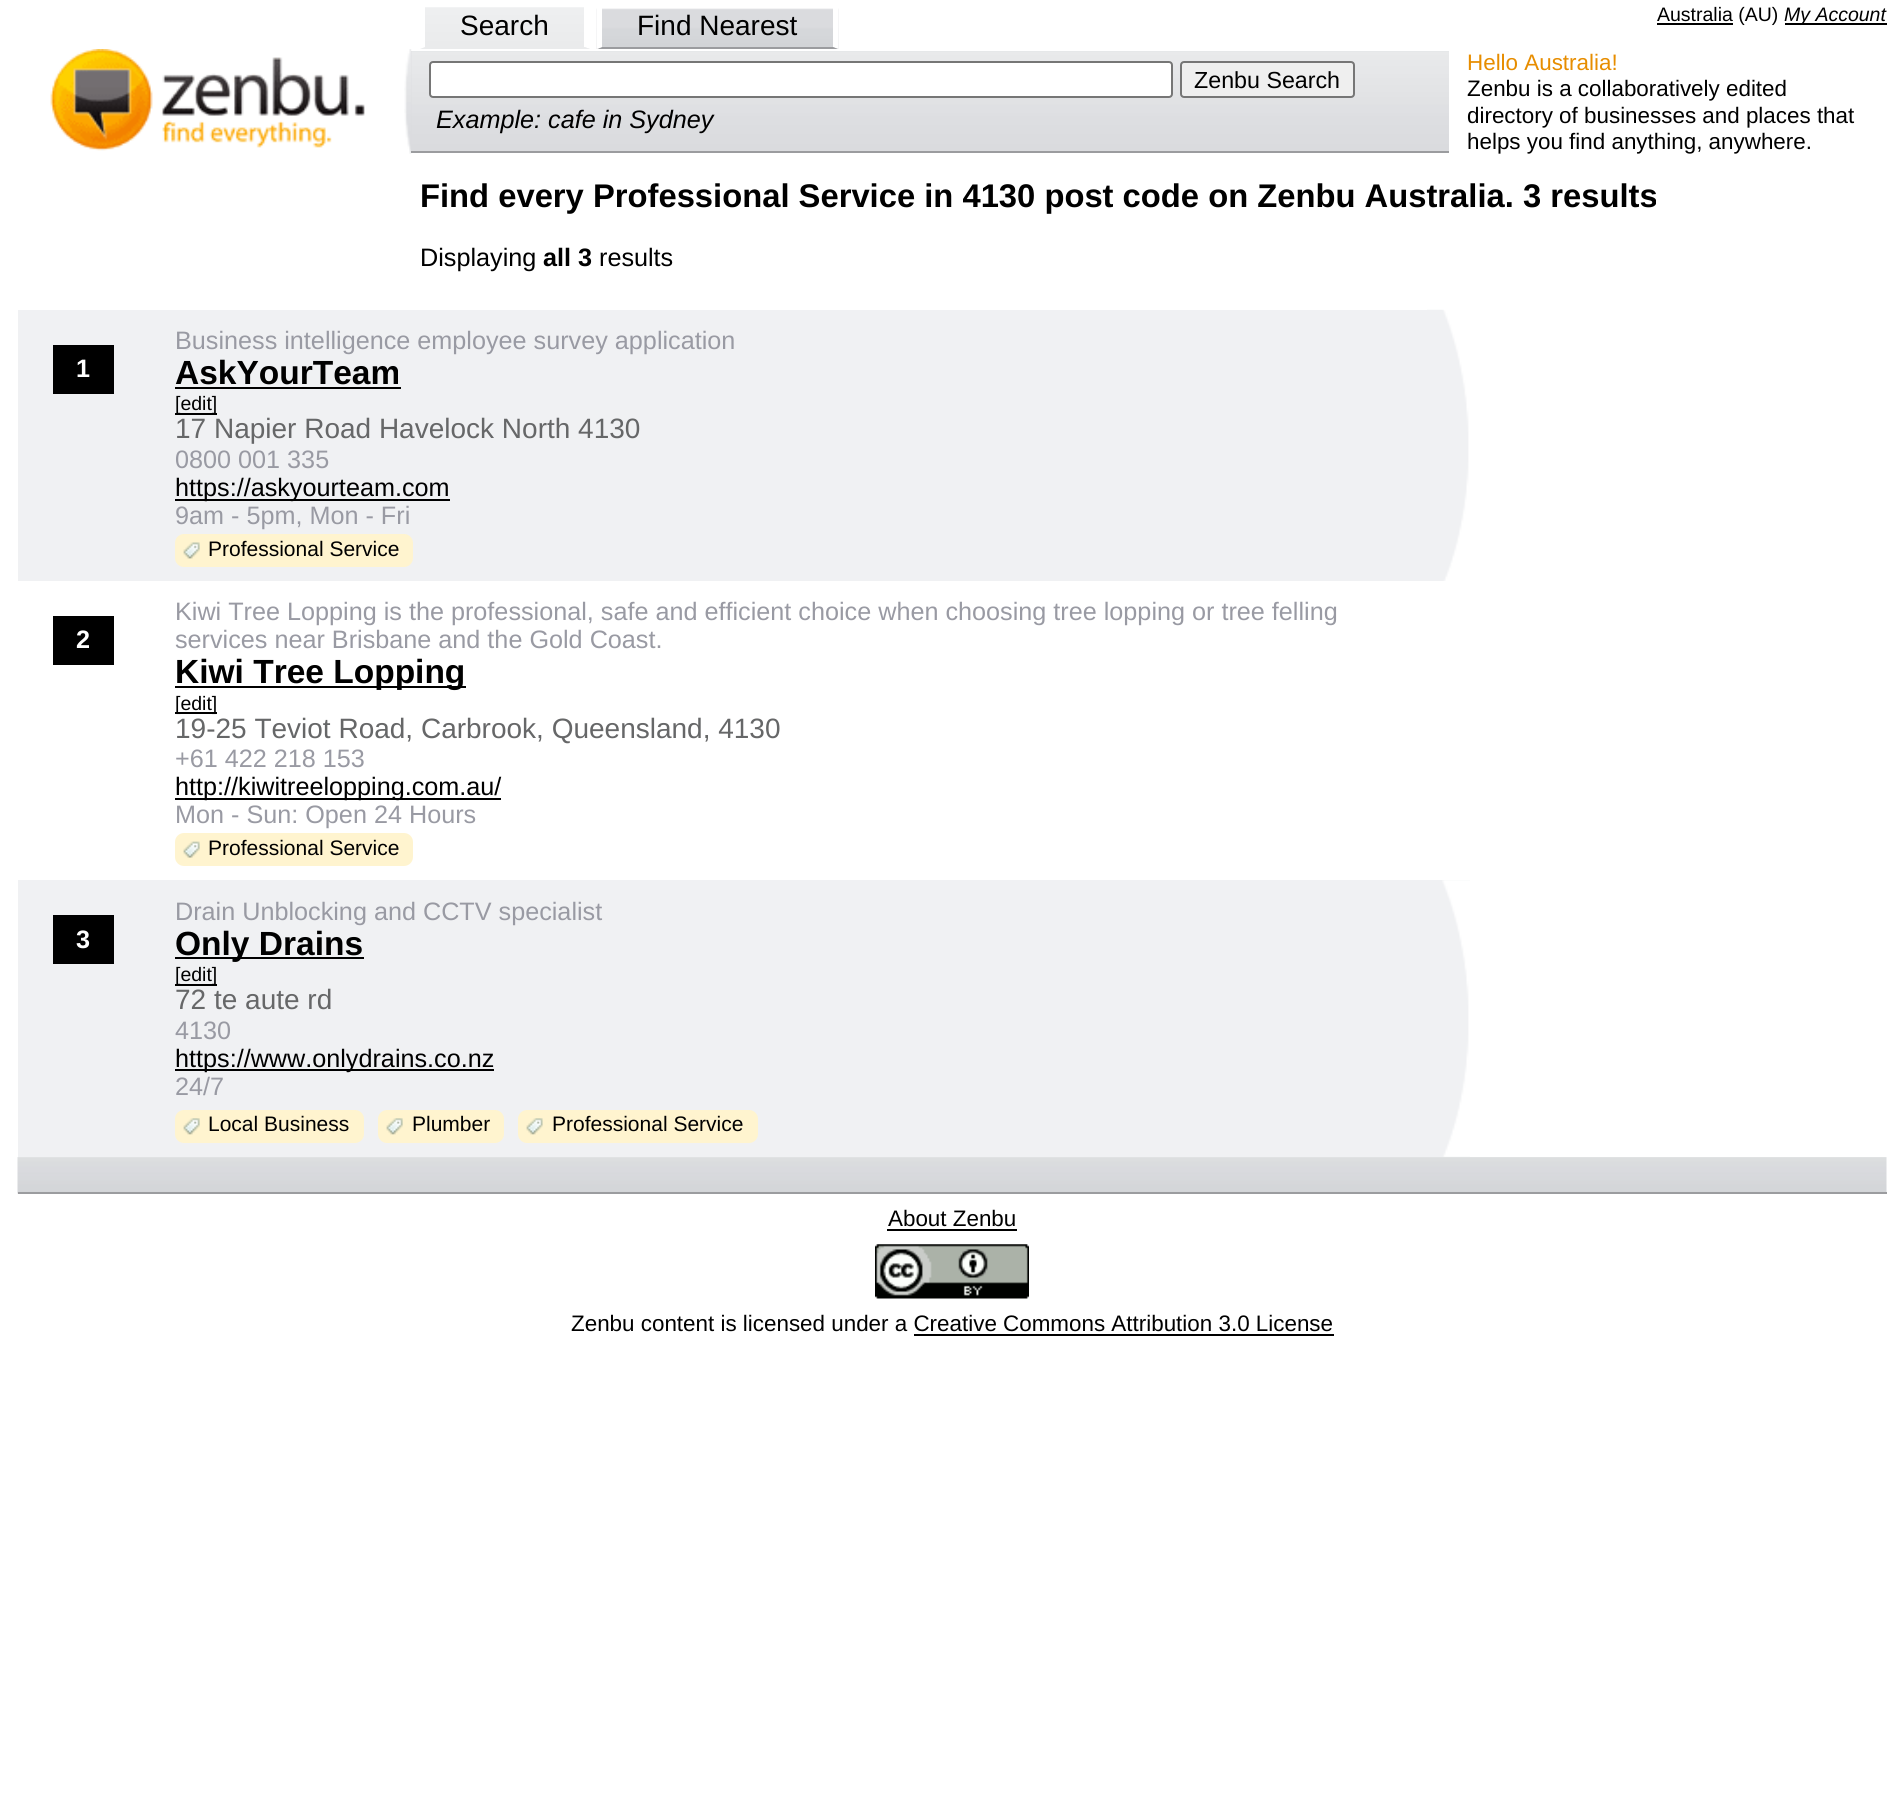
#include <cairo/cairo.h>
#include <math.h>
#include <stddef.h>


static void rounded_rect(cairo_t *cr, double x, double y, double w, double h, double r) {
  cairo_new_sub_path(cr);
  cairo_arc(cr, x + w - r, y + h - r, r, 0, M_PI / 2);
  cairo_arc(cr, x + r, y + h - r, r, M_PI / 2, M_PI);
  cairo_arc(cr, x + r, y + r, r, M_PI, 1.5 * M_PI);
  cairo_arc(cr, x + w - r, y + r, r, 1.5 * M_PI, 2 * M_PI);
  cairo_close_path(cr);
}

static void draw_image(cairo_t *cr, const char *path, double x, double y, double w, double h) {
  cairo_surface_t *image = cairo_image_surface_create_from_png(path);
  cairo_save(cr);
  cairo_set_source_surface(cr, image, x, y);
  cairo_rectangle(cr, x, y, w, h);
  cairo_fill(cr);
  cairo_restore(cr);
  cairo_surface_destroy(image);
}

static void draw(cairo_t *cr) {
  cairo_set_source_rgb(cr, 1, 1, 1);
  cairo_paint(cr);
  cairo_set_source_rgb(cr, 0, 0, 0);
  cairo_rectangle(cr, 1657, 23, 76, 2);
  cairo_fill(cr);
  cairo_rectangle(cr, 1785, 23, 102, 2);
  cairo_fill(cr);
  draw_image(cr, "images/1.png", 420, 7, 170, 42);
  draw_image(cr, "images/2.png", 596, 8, 243, 41);
  cairo_set_source_rgb(cr, 1, 1, 1);
  cairo_new_path(cr);
  cairo_move_to(cr, 590, 4);
  cairo_line_to(cr, 590, 49);
  cairo_line_to(cr, 584, 47);
  cairo_line_to(cr, 584, 4);
  cairo_close_path(cr);
  cairo_fill(cr);
  cairo_set_source_rgb(cr, 234 / 255.0, 235 / 255.0, 236 / 255.0);
  cairo_new_path(cr);
  cairo_move_to(cr, 590, 49);
  cairo_line_to(cr, 420, 49);
  cairo_line_to(cr, 425, 47);
  cairo_line_to(cr, 584, 47);
  cairo_close_path(cr);
  cairo_fill(cr);
  cairo_set_source_rgb(cr, 1, 1, 1);
  cairo_new_path(cr);
  cairo_move_to(cr, 420, 49);
  cairo_line_to(cr, 420, 4);
  cairo_line_to(cr, 425, 4);
  cairo_line_to(cr, 425, 47);
  cairo_close_path(cr);
  cairo_fill(cr);
  cairo_new_path(cr);
  cairo_move_to(cr, 838, 4);
  cairo_line_to(cr, 838, 49);
  cairo_line_to(cr, 833, 47);
  cairo_line_to(cr, 833, 4);
  cairo_close_path(cr);
  cairo_fill(cr);
  cairo_set_source_rgb(cr, 155 / 255.0, 156 / 255.0, 159 / 255.0);
  cairo_new_path(cr);
  cairo_move_to(cr, 838, 49);
  cairo_line_to(cr, 597, 49);
  cairo_line_to(cr, 602, 47);
  cairo_line_to(cr, 833, 47);
  cairo_close_path(cr);
  cairo_fill(cr);
  cairo_set_source_rgb(cr, 1, 1, 1);
  cairo_new_path(cr);
  cairo_move_to(cr, 597, 49);
  cairo_line_to(cr, 597, 4);
  cairo_line_to(cr, 602, 4);
  cairo_line_to(cr, 602, 47);
  cairo_close_path(cr);
  cairo_fill(cr);
  draw_image(cr, "images/3.png", 404, 49, 8, 105);
  draw_image(cr, "images/4.png", 50, 49, 315, 102);
  cairo_set_source_rgb(cr, 219 / 255.0, 220 / 255.0, 223 / 255.0);
  cairo_rectangle(cr, 411, 51, 1038, 100);
  cairo_fill(cr);
  draw_image(cr, "images/5.png", 411, 51, 1038, 100);
  cairo_set_source_rgb(cr, 155 / 255.0, 156 / 255.0, 159 / 255.0);
  cairo_rectangle(cr, 411, 151, 1038, 2);
  cairo_fill(cr);
  cairo_set_source_rgb(cr, 1, 1, 1);
  rounded_rect(cr, 430, 62, 742, 35, 3);
  cairo_fill_preserve(cr);
  cairo_set_source_rgb(cr, 118 / 255.0, 118 / 255.0, 118 / 255.0);
  cairo_stroke(cr);
  cairo_set_source_rgb(cr, 239 / 255.0, 239 / 255.0, 239 / 255.0);
  rounded_rect(cr, 1181, 62, 173, 35, 3);
  cairo_fill_preserve(cr);
  cairo_set_source_rgb(cr, 118 / 255.0, 118 / 255.0, 118 / 255.0);
  cairo_stroke(cr);
  cairo_set_source_rgb(cr, 240 / 255.0, 241 / 255.0, 243 / 255.0);
  cairo_rectangle(cr, 18, 310, 1409, 271);
  cairo_fill(cr);
  draw_image(cr, "images/6.png", 1427, 309, 43, 272);
  cairo_set_source_rgb(cr, 0, 0, 0);
  cairo_rectangle(cr, 53, 345, 61, 49);
  cairo_fill(cr);
  cairo_rectangle(cr, 175, 387, 226, 2);
  cairo_fill(cr);
  cairo_rectangle(cr, 175, 413, 42, 2);
  cairo_fill(cr);
  cairo_rectangle(cr, 175, 499, 275, 2);
  cairo_fill(cr);
  cairo_set_source_rgb(cr, 1, 244 / 255.0, 207 / 255.0);
  rounded_rect(cr, 175, 534, 238, 33, 9);
  cairo_fill(cr);
  draw_image(cr, "images/7.png", 183, 542, 17, 17);
  cairo_set_source_rgb(cr, 0, 0, 0);
  cairo_rectangle(cr, 53, 616, 61, 49);
  cairo_fill(cr);
  cairo_rectangle(cr, 175, 686, 291, 2);
  cairo_fill(cr);
  cairo_rectangle(cr, 175, 712, 42, 2);
  cairo_fill(cr);
  cairo_rectangle(cr, 175, 798, 326, 2);
  cairo_fill(cr);
  cairo_set_source_rgb(cr, 1, 244 / 255.0, 207 / 255.0);
  rounded_rect(cr, 175, 833, 238, 33, 9);
  cairo_fill(cr);
  draw_image(cr, "images/8.png", 183, 841, 17, 17);
  cairo_set_source_rgb(cr, 240 / 255.0, 241 / 255.0, 243 / 255.0);
  cairo_rectangle(cr, 18, 880, 1452, 277);
  cairo_fill(cr);
  draw_image(cr, "images/9.png", 1442, 880, 28, 277);
  cairo_set_source_rgb(cr, 0, 0, 0);
  cairo_rectangle(cr, 53, 915, 61, 49);
  cairo_fill(cr);
  cairo_rectangle(cr, 175, 957, 189, 2);
  cairo_fill(cr);
  cairo_rectangle(cr, 175, 984, 42, 2);
  cairo_fill(cr);
  cairo_rectangle(cr, 175, 1069, 319, 2);
  cairo_fill(cr);
  cairo_set_source_rgb(cr, 1, 244 / 255.0, 207 / 255.0);
  rounded_rect(cr, 175, 1110, 189, 33, 9);
  cairo_fill(cr);
  draw_image(cr, "images/10.png", 183, 1118, 17, 17);
  rounded_rect(cr, 378, 1110, 126, 33, 9);
  cairo_fill(cr);
  draw_image(cr, "images/10.png", 386, 1118, 17, 17);
  rounded_rect(cr, 518, 1110, 240, 33, 9);
  cairo_fill(cr);
  draw_image(cr, "images/11.png", 526, 1118, 17, 17);
  draw_image(cr, "images/12.png", 17, 1157, 1870, 37);
  cairo_set_source_rgb(cr, 155 / 255.0, 156 / 255.0, 159 / 255.0);
  cairo_rectangle(cr, 18, 1192, 1869, 2);
  cairo_fill(cr);
  cairo_set_source_rgb(cr, 0, 0, 0);
  cairo_rectangle(cr, 887, 1229, 130, 2);
  cairo_fill(cr);
  draw_image(cr, "images/13.png", 875, 1244, 154, 55);
  cairo_rectangle(cr, 914, 1334, 420, 2);
  cairo_fill(cr);
  cairo_select_font_face(cr, "Liberation Sans", CAIRO_FONT_SLANT_NORMAL, CAIRO_FONT_WEIGHT_NORMAL);
  cairo_set_font_size(cr, 19.5);
  cairo_move_to(cr, 1657, 21);
  cairo_show_text(cr, "Australia (AU)");
  cairo_select_font_face(cr, "Liberation Sans", CAIRO_FONT_SLANT_ITALIC, CAIRO_FONT_WEIGHT_NORMAL);
  cairo_move_to(cr, 1784, 21);
  cairo_show_text(cr, "My Account");
  cairo_select_font_face(cr, "Liberation Sans", CAIRO_FONT_SLANT_NORMAL, CAIRO_FONT_WEIGHT_NORMAL);
  cairo_set_font_size(cr, 28);
  cairo_move_to(cr, 460, 35);
  cairo_show_text(cr, "Search");
  cairo_move_to(cr, 637, 35);
  cairo_show_text(cr, "Find Nearest");
  cairo_set_font_size(cr, 23.25);
  cairo_move_to(cr, 1194, 88);
  cairo_show_text(cr, "Zenbu Search");
  cairo_select_font_face(cr, "Liberation Sans", CAIRO_FONT_SLANT_ITALIC, CAIRO_FONT_WEIGHT_NORMAL);
  cairo_set_font_size(cr, 25.2);
  cairo_move_to(cr, 436, 128);
  cairo_show_text(cr, "Example: cafe in Sydney");
  cairo_select_font_face(cr, "Liberation Sans", CAIRO_FONT_SLANT_NORMAL, CAIRO_FONT_WEIGHT_NORMAL);
  cairo_set_font_size(cr, 22.4);
  cairo_set_source_rgb(cr, 231 / 255.0, 141 / 255.0, 0);
  cairo_move_to(cr, 1467, 70);
  cairo_show_text(cr, "Hello Australia!");
  cairo_set_source_rgb(cr, 0, 0, 0);
  cairo_move_to(cr, 1467, 96);
  cairo_show_text(cr, "Zenbu is a collaboratively edited");
  cairo_move_to(cr, 1467, 123);
  cairo_show_text(cr, "directory of businesses and places that");
  cairo_move_to(cr, 1467, 149);
  cairo_show_text(cr, "helps you find anything, anywhere.");
  cairo_select_font_face(cr, "Liberation Sans", CAIRO_FONT_SLANT_NORMAL, CAIRO_FONT_WEIGHT_BOLD);
  cairo_set_font_size(cr, 32.75);
  cairo_move_to(cr, 420, 207);
  cairo_show_text(cr, "Find every Professional Service in 4130 post code on Zenbu Australia. 3 results");
  cairo_select_font_face(cr, "Liberation Sans", CAIRO_FONT_SLANT_NORMAL, CAIRO_FONT_WEIGHT_NORMAL);
  cairo_set_font_size(cr, 25.2);
  cairo_move_to(cr, 420, 266);
  cairo_show_text(cr, "Displaying");
  cairo_select_font_face(cr, "Liberation Sans", CAIRO_FONT_SLANT_NORMAL, CAIRO_FONT_WEIGHT_BOLD);
  cairo_move_to(cr, 543, 266);
  cairo_show_text(cr, "all 3");
  cairo_select_font_face(cr, "Liberation Sans", CAIRO_FONT_SLANT_NORMAL, CAIRO_FONT_WEIGHT_NORMAL);
  cairo_move_to(cr, 599, 266);
  cairo_show_text(cr, "results");
  cairo_select_font_face(cr, "Liberation Sans", CAIRO_FONT_SLANT_NORMAL, CAIRO_FONT_WEIGHT_BOLD);
  cairo_set_source_rgb(cr, 1, 1, 1);
  cairo_move_to(cr, 76, 377);
  cairo_show_text(cr, "1");
  cairo_select_font_face(cr, "Liberation Sans", CAIRO_FONT_SLANT_NORMAL, CAIRO_FONT_WEIGHT_NORMAL);
  cairo_set_source_rgb(cr, 153 / 255.0, 154 / 255.0, 163 / 255.0);
  cairo_move_to(cr, 175, 349);
  cairo_show_text(cr, "Business intelligence employee survey application");
  cairo_select_font_face(cr, "Liberation Sans", CAIRO_FONT_SLANT_NORMAL, CAIRO_FONT_WEIGHT_BOLD);
  cairo_set_font_size(cr, 33.5);
  cairo_set_source_rgb(cr, 0, 0, 0);
  cairo_move_to(cr, 175, 384);
  cairo_show_text(cr, "AskYourTeam");
  cairo_select_font_face(cr, "Liberation Sans", CAIRO_FONT_SLANT_NORMAL, CAIRO_FONT_WEIGHT_NORMAL);
  cairo_set_font_size(cr, 19.5);
  cairo_move_to(cr, 175, 410);
  cairo_show_text(cr, "[edit]");
  cairo_set_font_size(cr, 28);
  cairo_set_source_rgb(cr, 102 / 255.0, 103 / 255.0, 104 / 255.0);
  cairo_move_to(cr, 175, 438);
  cairo_show_text(cr, "17 Napier Road Havelock North 4130");
  cairo_set_font_size(cr, 25.2);
  cairo_set_source_rgb(cr, 153 / 255.0, 154 / 255.0, 163 / 255.0);
  cairo_move_to(cr, 175, 468);
  cairo_show_text(cr, "0800 001 335");
  cairo_set_source_rgb(cr, 0, 0, 0);
  cairo_move_to(cr, 175, 496);
  cairo_show_text(cr, "https://askyourteam.com");
  cairo_set_source_rgb(cr, 153 / 255.0, 154 / 255.0, 163 / 255.0);
  cairo_move_to(cr, 175, 524);
  cairo_show_text(cr, "9am - 5pm, Mon - Fri");
  cairo_set_font_size(cr, 21);
  cairo_set_source_rgb(cr, 0, 0, 0);
  cairo_move_to(cr, 208, 556);
  cairo_show_text(cr, "Professional Service");
  cairo_select_font_face(cr, "Liberation Sans", CAIRO_FONT_SLANT_NORMAL, CAIRO_FONT_WEIGHT_BOLD);
  cairo_set_font_size(cr, 25.2);
  cairo_set_source_rgb(cr, 1, 1, 1);
  cairo_move_to(cr, 76, 648);
  cairo_show_text(cr, "2");
  cairo_select_font_face(cr, "Liberation Sans", CAIRO_FONT_SLANT_NORMAL, CAIRO_FONT_WEIGHT_NORMAL);
  cairo_set_source_rgb(cr, 153 / 255.0, 154 / 255.0, 163 / 255.0);
  cairo_move_to(cr, 175, 620);
  cairo_show_text(cr, "Kiwi Tree Lopping is the professional, safe and efficient choice when choosing tree lopping or tree felling");
  cairo_move_to(cr, 175, 648);
  cairo_show_text(cr, "services near Brisbane and the Gold Coast.");
  cairo_select_font_face(cr, "Liberation Sans", CAIRO_FONT_SLANT_NORMAL, CAIRO_FONT_WEIGHT_BOLD);
  cairo_set_font_size(cr, 33.5);
  cairo_set_source_rgb(cr, 0, 0, 0);
  cairo_move_to(cr, 175, 683);
  cairo_show_text(cr, "Kiwi Tree Lopping");
  cairo_select_font_face(cr, "Liberation Sans", CAIRO_FONT_SLANT_NORMAL, CAIRO_FONT_WEIGHT_NORMAL);
  cairo_set_font_size(cr, 19.5);
  cairo_move_to(cr, 175, 710);
  cairo_show_text(cr, "[edit]");
  cairo_set_font_size(cr, 28);
  cairo_set_source_rgb(cr, 102 / 255.0, 103 / 255.0, 104 / 255.0);
  cairo_move_to(cr, 175, 738);
  cairo_show_text(cr, "19-25 Teviot Road, Carbrook, Queensland, 4130");
  cairo_set_font_size(cr, 25.2);
  cairo_set_source_rgb(cr, 153 / 255.0, 154 / 255.0, 163 / 255.0);
  cairo_move_to(cr, 175, 767);
  cairo_show_text(cr, "+61 422 218 153");
  cairo_set_source_rgb(cr, 0, 0, 0);
  cairo_move_to(cr, 175, 795);
  cairo_show_text(cr, "http://kiwitreelopping.com.au/");
  cairo_set_source_rgb(cr, 153 / 255.0, 154 / 255.0, 163 / 255.0);
  cairo_move_to(cr, 175, 823);
  cairo_show_text(cr, "Mon - Sun: Open 24 Hours");
  cairo_set_font_size(cr, 21);
  cairo_set_source_rgb(cr, 0, 0, 0);
  cairo_move_to(cr, 208, 855);
  cairo_show_text(cr, "Professional Service");
  cairo_select_font_face(cr, "Liberation Sans", CAIRO_FONT_SLANT_NORMAL, CAIRO_FONT_WEIGHT_BOLD);
  cairo_set_font_size(cr, 25.2);
  cairo_set_source_rgb(cr, 1, 1, 1);
  cairo_move_to(cr, 76, 948);
  cairo_show_text(cr, "3");
  cairo_select_font_face(cr, "Liberation Sans", CAIRO_FONT_SLANT_NORMAL, CAIRO_FONT_WEIGHT_NORMAL);
  cairo_set_source_rgb(cr, 153 / 255.0, 154 / 255.0, 163 / 255.0);
  cairo_move_to(cr, 175, 920);
  cairo_show_text(cr, "Drain Unblocking and CCTV specialist");
  cairo_select_font_face(cr, "Liberation Sans", CAIRO_FONT_SLANT_NORMAL, CAIRO_FONT_WEIGHT_BOLD);
  cairo_set_font_size(cr, 33.5);
  cairo_set_source_rgb(cr, 0, 0, 0);
  cairo_move_to(cr, 175, 955);
  cairo_show_text(cr, "Only Drains");
  cairo_select_font_face(cr, "Liberation Sans", CAIRO_FONT_SLANT_NORMAL, CAIRO_FONT_WEIGHT_NORMAL);
  cairo_set_font_size(cr, 19.5);
  cairo_move_to(cr, 175, 981);
  cairo_show_text(cr, "[edit]");
  cairo_set_font_size(cr, 28);
  cairo_set_source_rgb(cr, 102 / 255.0, 103 / 255.0, 104 / 255.0);
  cairo_move_to(cr, 175, 1009);
  cairo_show_text(cr, "72 te aute rd");
  cairo_set_font_size(cr, 25.2);
  cairo_set_source_rgb(cr, 153 / 255.0, 154 / 255.0, 163 / 255.0);
  cairo_move_to(cr, 175, 1039);
  cairo_show_text(cr, "4130");
  cairo_set_source_rgb(cr, 0, 0, 0);
  cairo_move_to(cr, 175, 1067);
  cairo_show_text(cr, "https://www.onlydrains.co.nz");
  cairo_set_source_rgb(cr, 153 / 255.0, 154 / 255.0, 163 / 255.0);
  cairo_move_to(cr, 175, 1095);
  cairo_show_text(cr, "24/7");
  cairo_set_font_size(cr, 21);
  cairo_set_source_rgb(cr, 0, 0, 0);
  cairo_move_to(cr, 208, 1131);
  cairo_show_text(cr, "Local Business");
  cairo_move_to(cr, 412, 1131);
  cairo_show_text(cr, "Plumber");
  cairo_move_to(cr, 552, 1131);
  cairo_show_text(cr, "Professional Service");
  cairo_set_font_size(cr, 22.4);
  cairo_move_to(cr, 888, 1226);
  cairo_show_text(cr, "About Zenbu");
  cairo_move_to(cr, 571, 1331);
  cairo_show_text(cr, "Zenbu content is licensed under a Creative Commons Attribution 3.0 License");
}

int main(void) {
  cairo_surface_t *surface = cairo_image_surface_create(CAIRO_FORMAT_RGB24, 1904, 1803);
  cairo_t *cr = cairo_create(surface);
  cairo_font_options_t *options = cairo_font_options_create();
  cairo_font_options_set_hint_metrics(options, CAIRO_HINT_METRICS_OFF);
  cairo_font_options_set_hint_style(options, CAIRO_HINT_STYLE_NONE);
  cairo_set_font_options(cr, options);
  cairo_set_miter_limit(cr, 4);
  draw(cr);
  cairo_surface_write_to_png(surface, "out.png");
  cairo_font_options_destroy(options);
  cairo_destroy(cr);
  cairo_surface_destroy(surface);
  return 0;
}
